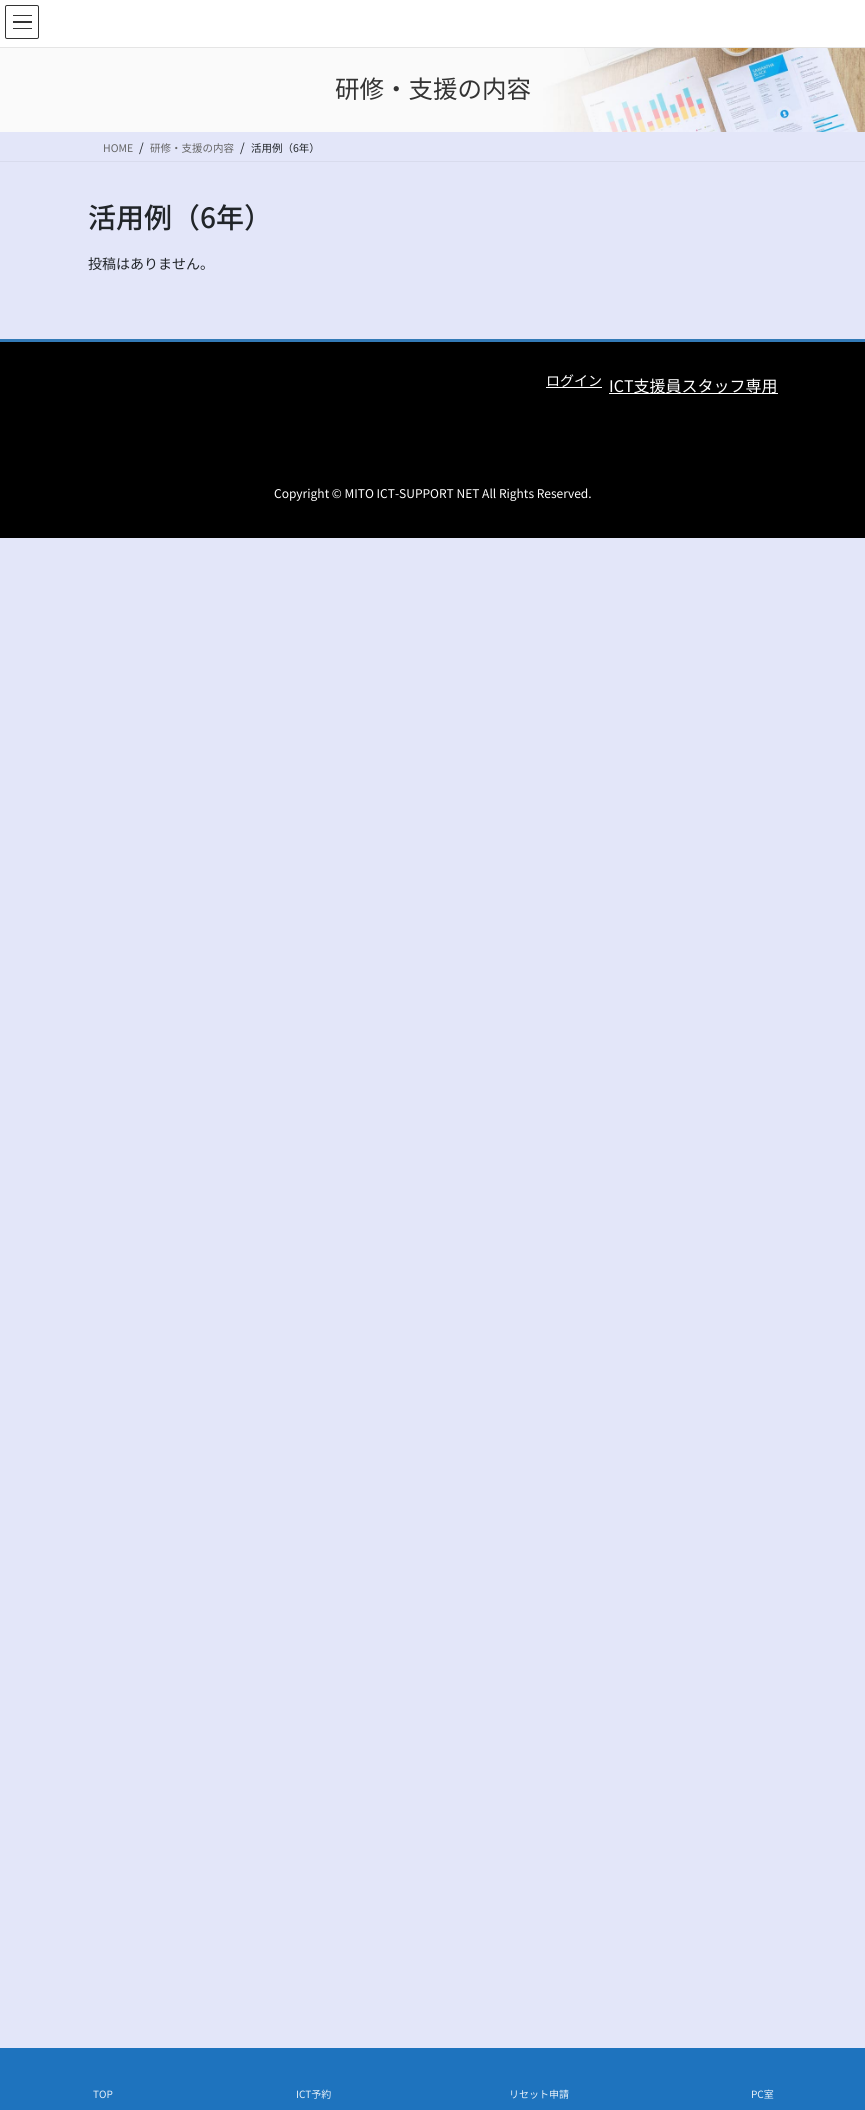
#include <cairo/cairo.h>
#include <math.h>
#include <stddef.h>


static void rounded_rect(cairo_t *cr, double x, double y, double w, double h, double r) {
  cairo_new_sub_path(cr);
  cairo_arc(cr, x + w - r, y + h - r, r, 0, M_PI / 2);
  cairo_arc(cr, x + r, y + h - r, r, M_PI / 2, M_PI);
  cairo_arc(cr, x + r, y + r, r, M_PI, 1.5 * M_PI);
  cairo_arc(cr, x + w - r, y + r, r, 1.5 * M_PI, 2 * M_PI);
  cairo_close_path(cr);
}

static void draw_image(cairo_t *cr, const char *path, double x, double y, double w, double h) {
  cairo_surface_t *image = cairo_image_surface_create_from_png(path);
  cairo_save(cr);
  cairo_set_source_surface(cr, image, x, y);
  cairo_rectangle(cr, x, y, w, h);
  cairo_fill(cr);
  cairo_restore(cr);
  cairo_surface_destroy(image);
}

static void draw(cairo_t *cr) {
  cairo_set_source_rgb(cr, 227 / 255.0, 230 / 255.0, 249 / 255.0);
  cairo_paint(cr);
  cairo_set_source_rgb(cr, 1, 1, 1);
  cairo_rectangle(cr, 0, 0, 865, 47);
  cairo_fill(cr);
  cairo_set_source_rgb(cr, 229 / 255.0, 229 / 255.0, 229 / 255.0);
  cairo_rectangle(cr, 0, 47, 865, 1);
  cairo_fill(cr);
  cairo_set_source_rgb(cr, 51 / 255.0, 51 / 255.0, 51 / 255.0);
  cairo_rectangle(cr, 13, 15, 19, 1);
  cairo_fill(cr);
  cairo_rectangle(cr, 13, 21, 19, 2);
  cairo_fill(cr);
  cairo_rectangle(cr, 13, 28, 19, 1);
  cairo_fill(cr);
  rounded_rect(cr, 5.5, 5.5, 33, 33, 1.5);
  cairo_set_line_width(cr, 1);
  cairo_stroke(cr);
  draw_image(cr, "images/1.png", 0, 48, 865, 84);
  cairo_set_source_rgb(cr, 216 / 255.0, 219 / 255.0, 237 / 255.0);
  cairo_rectangle(cr, 0, 161, 865, 1);
  cairo_fill(cr);
  cairo_set_source_rgb(cr, 0, 0, 0);
  cairo_rectangle(cr, 0, 342, 865, 196);
  cairo_fill(cr);
  cairo_set_source_rgb(cr, 51 / 255.0, 122 / 255.0, 183 / 255.0);
  cairo_rectangle(cr, 0, 339, 865, 3);
  cairo_fill(cr);
  cairo_set_source_rgb(cr, 1, 1, 1);
  cairo_rectangle(cr, 546, 387, 56, 1);
  cairo_fill(cr);
  cairo_rectangle(cr, 609, 393, 169, 1);
  cairo_fill(cr);
  cairo_set_source_rgb(cr, 30 / 255.0, 115 / 255.0, 190 / 255.0);
  cairo_rectangle(cr, 0, 2048, 865, 62);
  cairo_fill(cr);
  cairo_select_font_face(cr, "Noto Sans JP", CAIRO_FONT_SLANT_NORMAL, CAIRO_FONT_WEIGHT_NORMAL);
  cairo_set_font_size(cr, 24.5);
  cairo_set_source_rgb(cr, 51 / 255.0, 51 / 255.0, 51 / 255.0);
  cairo_move_to(cr, 335, 98);
  cairo_show_text(cr, "研修・支援の内容");
  cairo_set_font_size(cr, 10.5);
  cairo_set_source_rgb(cr, 102 / 255.0, 102 / 255.0, 102 / 255.0);
  cairo_move_to(cr, 103, 152);
  cairo_show_text(cr, "HOME");
  cairo_set_font_size(cr, 12);
  cairo_set_source_rgb(cr, 33 / 255.0, 37 / 255.0, 41 / 255.0);
  cairo_move_to(cr, 139, 152);
  cairo_show_text(cr, "/");
  cairo_set_font_size(cr, 10.5);
  cairo_set_source_rgb(cr, 102 / 255.0, 102 / 255.0, 102 / 255.0);
  cairo_move_to(cr, 150, 152);
  cairo_show_text(cr, "研修・支援の内容");
  cairo_set_font_size(cr, 12);
  cairo_set_source_rgb(cr, 33 / 255.0, 37 / 255.0, 41 / 255.0);
  cairo_move_to(cr, 240, 152);
  cairo_show_text(cr, "/");
  cairo_set_font_size(cr, 10.5);
  cairo_move_to(cr, 251, 152);
  cairo_show_text(cr, "活用例（6年）");
  cairo_select_font_face(cr, "Noto Sans JP Medium", CAIRO_FONT_SLANT_NORMAL, CAIRO_FONT_WEIGHT_NORMAL);
  cairo_set_font_size(cr, 28);
  cairo_move_to(cr, 88, 228);
  cairo_show_text(cr, "活用例（6年）");
  cairo_select_font_face(cr, "Noto Sans JP", CAIRO_FONT_SLANT_NORMAL, CAIRO_FONT_WEIGHT_NORMAL);
  cairo_set_font_size(cr, 14);
  cairo_move_to(cr, 88, 269);
  cairo_show_text(cr, "投稿はありません。");
  cairo_set_source_rgb(cr, 1, 1, 1);
  cairo_move_to(cr, 546, 386);
  cairo_show_text(cr, "ログイン");
  cairo_set_font_size(cr, 16);
  cairo_move_to(cr, 609, 392);
  cairo_show_text(cr, "ICT支援員スタッフ専用");
  cairo_set_font_size(cr, 12);
  cairo_move_to(cr, 274, 498);
  cairo_show_text(cr, "Copyright © MITO ICT-SUPPORT NET All Rights Reserved.");
  cairo_set_font_size(cr, 10);
  cairo_set_source_rgb(cr, 233 / 255.0, 241 / 255.0, 249 / 255.0);
  cairo_move_to(cr, 93, 2098);
  cairo_show_text(cr, "TOP");
  cairo_move_to(cr, 296, 2098);
  cairo_show_text(cr, "ICT予約");
  cairo_move_to(cr, 509, 2098);
  cairo_show_text(cr, "リセット申請");
  cairo_move_to(cr, 751, 2098);
  cairo_show_text(cr, "PC室");
}

int main(void) {
  cairo_surface_t *surface = cairo_image_surface_create(CAIRO_FORMAT_RGB24, 865, 2110);
  cairo_t *cr = cairo_create(surface);
  cairo_font_options_t *options = cairo_font_options_create();
  cairo_font_options_set_hint_metrics(options, CAIRO_HINT_METRICS_OFF);
  cairo_font_options_set_hint_style(options, CAIRO_HINT_STYLE_NONE);
  cairo_set_font_options(cr, options);
  cairo_set_miter_limit(cr, 4);
  draw(cr);
  cairo_surface_write_to_png(surface, "out.png");
  cairo_font_options_destroy(options);
  cairo_destroy(cr);
  cairo_surface_destroy(surface);
  return 0;
}
